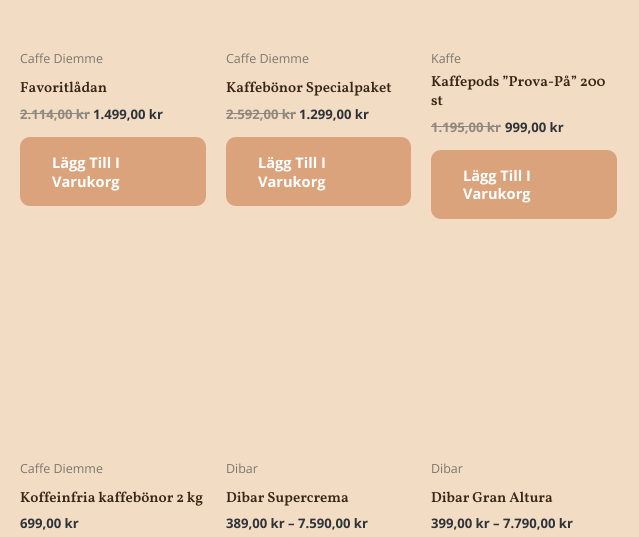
#include <cairo/cairo.h>
#include <math.h>
#include <stddef.h>


static void rounded_rect(cairo_t *cr, double x, double y, double w, double h, double r) {
  cairo_new_sub_path(cr);
  cairo_arc(cr, x + w - r, y + h - r, r, 0, M_PI / 2);
  cairo_arc(cr, x + r, y + h - r, r, M_PI / 2, M_PI);
  cairo_arc(cr, x + r, y + r, r, M_PI, 1.5 * M_PI);
  cairo_arc(cr, x + w - r, y + r, r, 1.5 * M_PI, 2 * M_PI);
  cairo_close_path(cr);
}

static void draw(cairo_t *cr) {
  cairo_set_source_rgb(cr, 242 / 255.0, 220 / 255.0, 196 / 255.0);
  cairo_paint(cr);
  cairo_set_source_rgb(cr, 144 / 255.0, 136 / 255.0, 126 / 255.0);
  cairo_rectangle(cr, 20, 113, 70, 1);
  cairo_fill(cr);
  cairo_set_source_rgb(cr, 218 / 255.0, 163 / 255.0, 124 / 255.0);
  rounded_rect(cr, 20, 137, 186, 69, 10);
  cairo_fill(cr);
  cairo_set_source_rgb(cr, 144 / 255.0, 136 / 255.0, 126 / 255.0);
  cairo_rectangle(cr, 226, 113, 70, 1);
  cairo_fill(cr);
  cairo_set_source_rgb(cr, 218 / 255.0, 163 / 255.0, 124 / 255.0);
  rounded_rect(cr, 226, 137, 185, 69, 10);
  cairo_fill(cr);
  cairo_set_source_rgb(cr, 144 / 255.0, 136 / 255.0, 126 / 255.0);
  cairo_rectangle(cr, 431, 126, 70, 1);
  cairo_fill(cr);
  cairo_set_source_rgb(cr, 218 / 255.0, 163 / 255.0, 124 / 255.0);
  rounded_rect(cr, 431, 150, 186, 69, 10);
  cairo_fill(cr);
  cairo_select_font_face(cr, "Open Sans", CAIRO_FONT_SLANT_NORMAL, CAIRO_FONT_WEIGHT_NORMAL);
  cairo_set_font_size(cr, 12.5);
  cairo_set_source_rgb(cr, 124 / 255.0, 119 / 255.0, 112 / 255.0);
  cairo_move_to(cr, 20, 63);
  cairo_show_text(cr, "Caffe Diemme");
  cairo_select_font_face(cr, "Vollkorn SemiBold", CAIRO_FONT_SLANT_NORMAL, CAIRO_FONT_WEIGHT_NORMAL);
  cairo_set_font_size(cr, 14.6);
  cairo_set_source_rgb(cr, 56 / 255.0, 38 / 255.0, 22 / 255.0);
  cairo_move_to(cr, 20, 92);
  cairo_show_text(cr, "Favoritlådan");
  cairo_select_font_face(cr, "Open Sans", CAIRO_FONT_SLANT_NORMAL, CAIRO_FONT_WEIGHT_BOLD);
  cairo_set_font_size(cr, 13.1);
  cairo_set_source_rgb(cr, 144 / 255.0, 136 / 255.0, 126 / 255.0);
  cairo_move_to(cr, 20, 119);
  cairo_show_text(cr, "2.114,00 kr");
  cairo_set_source_rgb(cr, 46 / 255.0, 51 / 255.0, 56 / 255.0);
  cairo_move_to(cr, 93, 119);
  cairo_show_text(cr, "1.499,00 kr");
  cairo_set_font_size(cr, 14.6);
  cairo_set_source_rgb(cr, 1, 1, 1);
  cairo_move_to(cr, 52, 168);
  cairo_show_text(cr, "Lägg Till I");
  cairo_move_to(cr, 52, 187);
  cairo_show_text(cr, "Varukorg");
  cairo_select_font_face(cr, "Open Sans", CAIRO_FONT_SLANT_NORMAL, CAIRO_FONT_WEIGHT_NORMAL);
  cairo_set_font_size(cr, 12.5);
  cairo_set_source_rgb(cr, 124 / 255.0, 119 / 255.0, 112 / 255.0);
  cairo_move_to(cr, 226, 63);
  cairo_show_text(cr, "Caffe Diemme");
  cairo_select_font_face(cr, "Vollkorn SemiBold", CAIRO_FONT_SLANT_NORMAL, CAIRO_FONT_WEIGHT_NORMAL);
  cairo_set_font_size(cr, 14.6);
  cairo_set_source_rgb(cr, 56 / 255.0, 38 / 255.0, 22 / 255.0);
  cairo_move_to(cr, 226, 92);
  cairo_show_text(cr, "Kaffebönor Specialpaket");
  cairo_select_font_face(cr, "Open Sans", CAIRO_FONT_SLANT_NORMAL, CAIRO_FONT_WEIGHT_BOLD);
  cairo_set_font_size(cr, 13.1);
  cairo_set_source_rgb(cr, 144 / 255.0, 136 / 255.0, 126 / 255.0);
  cairo_move_to(cr, 226, 119);
  cairo_show_text(cr, "2.592,00 kr");
  cairo_set_source_rgb(cr, 46 / 255.0, 51 / 255.0, 56 / 255.0);
  cairo_move_to(cr, 299, 119);
  cairo_show_text(cr, "1.299,00 kr");
  cairo_set_font_size(cr, 14.6);
  cairo_set_source_rgb(cr, 1, 1, 1);
  cairo_move_to(cr, 258, 168);
  cairo_show_text(cr, "Lägg Till I");
  cairo_move_to(cr, 258, 187);
  cairo_show_text(cr, "Varukorg");
  cairo_select_font_face(cr, "Open Sans", CAIRO_FONT_SLANT_NORMAL, CAIRO_FONT_WEIGHT_NORMAL);
  cairo_set_font_size(cr, 12.5);
  cairo_set_source_rgb(cr, 124 / 255.0, 119 / 255.0, 112 / 255.0);
  cairo_move_to(cr, 431, 63);
  cairo_show_text(cr, "Kaffe");
  cairo_select_font_face(cr, "Vollkorn SemiBold", CAIRO_FONT_SLANT_NORMAL, CAIRO_FONT_WEIGHT_NORMAL);
  cairo_set_font_size(cr, 14.6);
  cairo_set_source_rgb(cr, 56 / 255.0, 38 / 255.0, 22 / 255.0);
  cairo_move_to(cr, 431, 86);
  cairo_show_text(cr, "Kaffepods ”Prova-På” 200");
  cairo_move_to(cr, 431, 105);
  cairo_show_text(cr, "st");
  cairo_select_font_face(cr, "Open Sans", CAIRO_FONT_SLANT_NORMAL, CAIRO_FONT_WEIGHT_BOLD);
  cairo_set_font_size(cr, 13.1);
  cairo_set_source_rgb(cr, 144 / 255.0, 136 / 255.0, 126 / 255.0);
  cairo_move_to(cr, 431, 132);
  cairo_show_text(cr, "1.195,00 kr");
  cairo_set_source_rgb(cr, 46 / 255.0, 51 / 255.0, 56 / 255.0);
  cairo_move_to(cr, 505, 132);
  cairo_show_text(cr, "999,00 kr");
  cairo_set_font_size(cr, 14.6);
  cairo_set_source_rgb(cr, 1, 1, 1);
  cairo_move_to(cr, 463, 181);
  cairo_show_text(cr, "Lägg Till I");
  cairo_move_to(cr, 463, 199);
  cairo_show_text(cr, "Varukorg");
  cairo_select_font_face(cr, "Open Sans", CAIRO_FONT_SLANT_NORMAL, CAIRO_FONT_WEIGHT_NORMAL);
  cairo_set_font_size(cr, 12.5);
  cairo_set_source_rgb(cr, 124 / 255.0, 119 / 255.0, 112 / 255.0);
  cairo_move_to(cr, 20, 473);
  cairo_show_text(cr, "Caffe Diemme");
  cairo_select_font_face(cr, "Vollkorn SemiBold", CAIRO_FONT_SLANT_NORMAL, CAIRO_FONT_WEIGHT_NORMAL);
  cairo_set_font_size(cr, 14.6);
  cairo_set_source_rgb(cr, 56 / 255.0, 38 / 255.0, 22 / 255.0);
  cairo_move_to(cr, 20, 502);
  cairo_show_text(cr, "Koffeinfria kaffebönor 2 kg");
  cairo_select_font_face(cr, "Open Sans", CAIRO_FONT_SLANT_NORMAL, CAIRO_FONT_WEIGHT_BOLD);
  cairo_set_font_size(cr, 13.1);
  cairo_set_source_rgb(cr, 46 / 255.0, 51 / 255.0, 56 / 255.0);
  cairo_move_to(cr, 20, 528);
  cairo_show_text(cr, "699,00 kr");
  cairo_select_font_face(cr, "Open Sans", CAIRO_FONT_SLANT_NORMAL, CAIRO_FONT_WEIGHT_NORMAL);
  cairo_set_font_size(cr, 12.5);
  cairo_set_source_rgb(cr, 124 / 255.0, 119 / 255.0, 112 / 255.0);
  cairo_move_to(cr, 226, 473);
  cairo_show_text(cr, "Dibar");
  cairo_select_font_face(cr, "Vollkorn SemiBold", CAIRO_FONT_SLANT_NORMAL, CAIRO_FONT_WEIGHT_NORMAL);
  cairo_set_font_size(cr, 14.6);
  cairo_set_source_rgb(cr, 56 / 255.0, 38 / 255.0, 22 / 255.0);
  cairo_move_to(cr, 226, 502);
  cairo_show_text(cr, "Dibar Supercrema");
  cairo_select_font_face(cr, "Open Sans", CAIRO_FONT_SLANT_NORMAL, CAIRO_FONT_WEIGHT_BOLD);
  cairo_set_font_size(cr, 13.1);
  cairo_set_source_rgb(cr, 46 / 255.0, 51 / 255.0, 56 / 255.0);
  cairo_move_to(cr, 226, 528);
  cairo_show_text(cr, "389,00 kr – 7.590,00 kr");
  cairo_select_font_face(cr, "Open Sans", CAIRO_FONT_SLANT_NORMAL, CAIRO_FONT_WEIGHT_NORMAL);
  cairo_set_font_size(cr, 12.5);
  cairo_set_source_rgb(cr, 124 / 255.0, 119 / 255.0, 112 / 255.0);
  cairo_move_to(cr, 431, 473);
  cairo_show_text(cr, "Dibar");
  cairo_select_font_face(cr, "Vollkorn SemiBold", CAIRO_FONT_SLANT_NORMAL, CAIRO_FONT_WEIGHT_NORMAL);
  cairo_set_font_size(cr, 14.6);
  cairo_set_source_rgb(cr, 56 / 255.0, 38 / 255.0, 22 / 255.0);
  cairo_move_to(cr, 431, 502);
  cairo_show_text(cr, "Dibar Gran Altura");
  cairo_select_font_face(cr, "Open Sans", CAIRO_FONT_SLANT_NORMAL, CAIRO_FONT_WEIGHT_BOLD);
  cairo_set_font_size(cr, 13.1);
  cairo_set_source_rgb(cr, 46 / 255.0, 51 / 255.0, 56 / 255.0);
  cairo_move_to(cr, 431, 528);
  cairo_show_text(cr, "399,00 kr – 7.790,00 kr");
}

int main(void) {
  cairo_surface_t *surface = cairo_image_surface_create(CAIRO_FORMAT_RGB24, 639, 537);
  cairo_t *cr = cairo_create(surface);
  cairo_font_options_t *options = cairo_font_options_create();
  cairo_font_options_set_hint_metrics(options, CAIRO_HINT_METRICS_OFF);
  cairo_font_options_set_hint_style(options, CAIRO_HINT_STYLE_NONE);
  cairo_set_font_options(cr, options);
  cairo_set_miter_limit(cr, 4);
  draw(cr);
  cairo_surface_write_to_png(surface, "out.png");
  cairo_font_options_destroy(options);
  cairo_destroy(cr);
  cairo_surface_destroy(surface);
  return 0;
}
